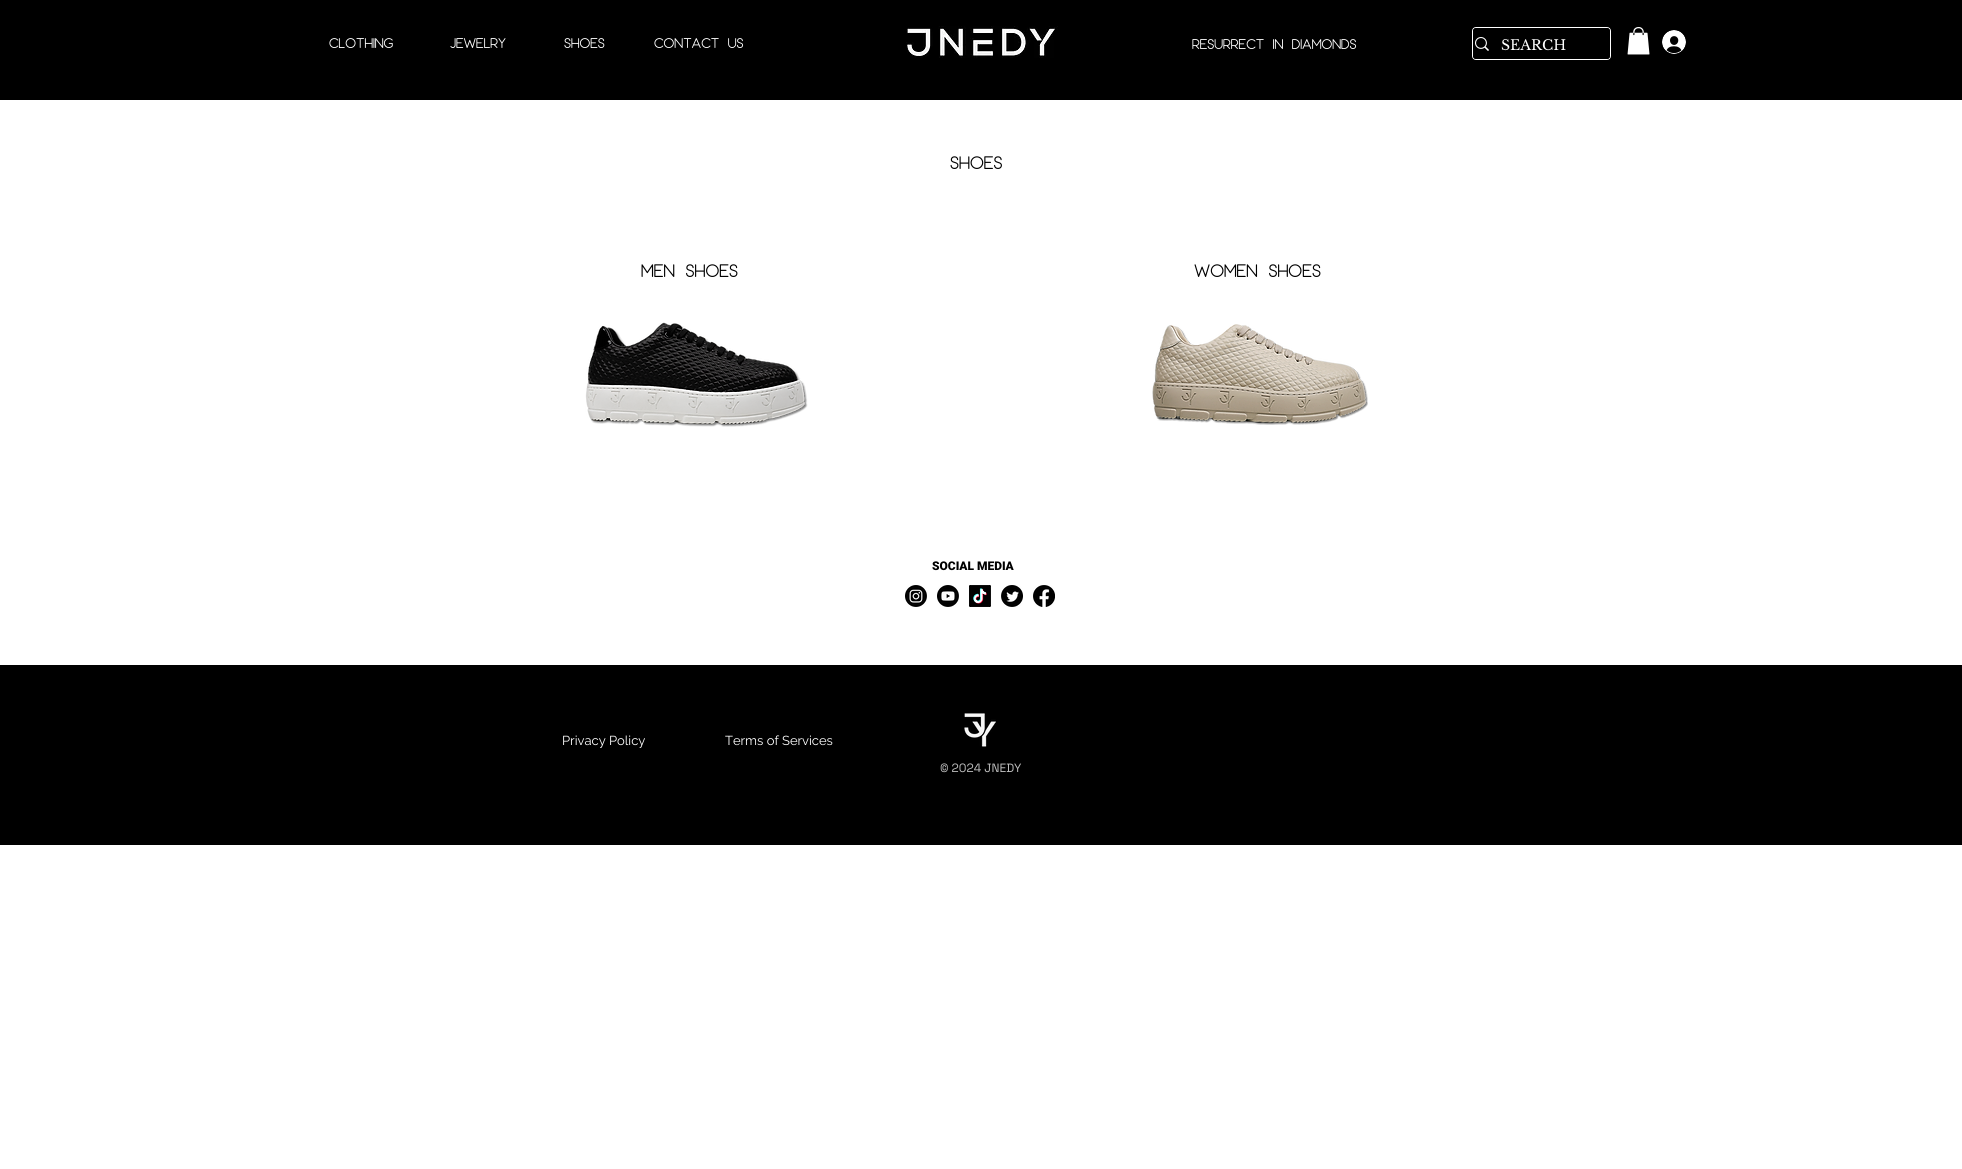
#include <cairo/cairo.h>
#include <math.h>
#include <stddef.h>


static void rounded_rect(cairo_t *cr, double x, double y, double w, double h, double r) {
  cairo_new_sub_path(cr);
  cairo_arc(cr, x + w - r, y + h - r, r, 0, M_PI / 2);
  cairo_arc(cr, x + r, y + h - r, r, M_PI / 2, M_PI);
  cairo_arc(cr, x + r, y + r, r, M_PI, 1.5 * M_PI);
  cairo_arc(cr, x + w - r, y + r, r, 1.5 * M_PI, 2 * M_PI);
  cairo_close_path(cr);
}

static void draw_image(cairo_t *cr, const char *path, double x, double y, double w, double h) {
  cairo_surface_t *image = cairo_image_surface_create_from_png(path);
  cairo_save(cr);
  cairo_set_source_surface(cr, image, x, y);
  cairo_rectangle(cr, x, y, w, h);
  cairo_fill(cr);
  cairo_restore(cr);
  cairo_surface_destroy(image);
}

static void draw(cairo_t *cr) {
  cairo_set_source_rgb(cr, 1, 1, 1);
  cairo_paint(cr);
  cairo_set_source_rgb(cr, 0, 0, 0);
  cairo_rectangle(cr, 0, 0, 1962, 100);
  cairo_fill(cr);
  draw_image(cr, "images/1.png", 906, 26, 152, 32);
  rounded_rect(cr, 1472.5, 27.5, 138, 32, 3.5);
  cairo_set_source_rgb(cr, 1, 1, 1);
  cairo_set_line_width(cr, 1);
  cairo_stroke(cr);
  cairo_set_source_rgb(cr, 0, 0, 0);
  rounded_rect(cr, 1473, 28, 137, 31, 3);
  cairo_fill(cr);
  draw_image(cr, "images/2.png", 1475, 37, 14, 14);
  draw_image(cr, "images/3.png", 1627, 27, 23, 28);
  draw_image(cr, "images/4.png", 1662, 30, 24, 24);
  draw_image(cr, "images/5.png", 585, 322, 223, 105);
  draw_image(cr, "images/6.png", 1152, 324, 216, 101);
  draw_image(cr, "images/7.png", 905, 585, 22, 22);
  draw_image(cr, "images/8.png", 937, 585, 22, 22);
  draw_image(cr, "images/9.png", 969, 585, 22, 22);
  draw_image(cr, "images/10.png", 1001, 585, 22, 22);
  draw_image(cr, "images/11.png", 1033, 585, 22, 22);
  cairo_rectangle(cr, 0, 665, 1962, 180);
  cairo_fill(cr);
  draw_image(cr, "images/12.png", 964, 713, 32, 34);
  cairo_select_font_face(cr, "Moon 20", CAIRO_FONT_SLANT_NORMAL, CAIRO_FONT_WEIGHT_NORMAL);
  cairo_set_font_size(cr, 14);
  cairo_set_source_rgb(cr, 1, 1, 1);
  cairo_move_to(cr, 329, 48);
  cairo_show_text(cr, "CLOTHING");
  cairo_move_to(cr, 450, 48);
  cairo_show_text(cr, "JEWELRY");
  cairo_move_to(cr, 564, 48);
  cairo_show_text(cr, "SHOES");
  cairo_move_to(cr, 654, 48);
  cairo_show_text(cr, "CONTACT US");
  cairo_move_to(cr, 1192, 49);
  cairo_show_text(cr, "RESURRECT IN DIAMONDS");
  cairo_select_font_face(cr, "Libre Baskerville", CAIRO_FONT_SLANT_NORMAL, CAIRO_FONT_WEIGHT_NORMAL);
  cairo_move_to(cr, 1501, 50);
  cairo_show_text(cr, "SEARCH");
  cairo_select_font_face(cr, "Moon 20", CAIRO_FONT_SLANT_NORMAL, CAIRO_FONT_WEIGHT_NORMAL);
  cairo_set_font_size(cr, 18);
  cairo_set_source_rgb(cr, 0, 0, 0);
  cairo_move_to(cr, 950, 169);
  cairo_show_text(cr, "SHOES");
  cairo_move_to(cr, 641, 277);
  cairo_show_text(cr, "MEN SHOES");
  cairo_move_to(cr, 1194, 277);
  cairo_show_text(cr, "WOMEN SHOES");
  cairo_select_font_face(cr, "Roboto Black", CAIRO_FONT_SLANT_NORMAL, CAIRO_FONT_WEIGHT_NORMAL);
  cairo_set_font_size(cr, 12);
  cairo_move_to(cr, 932, 570);
  cairo_show_text(cr, "SOCIAL MEDIA");
  cairo_select_font_face(cr, "Raleway", CAIRO_FONT_SLANT_NORMAL, CAIRO_FONT_WEIGHT_NORMAL);
  cairo_set_font_size(cr, 13);
  cairo_set_source_rgb(cr, 1, 1, 1);
  cairo_move_to(cr, 562, 745);
  cairo_show_text(cr, "Privacy Policy");
  cairo_move_to(cr, 725, 745);
  cairo_show_text(cr, "Terms of Services");
  cairo_select_font_face(cr, "Space Grotesk", CAIRO_FONT_SLANT_NORMAL, CAIRO_FONT_WEIGHT_NORMAL);
  cairo_set_font_size(cr, 12);
  cairo_set_source_rgb(cr, 191 / 255.0, 191 / 255.0, 191 / 255.0);
  cairo_move_to(cr, 940, 772);
  cairo_show_text(cr, "© 2024 JNEDY");
}

int main(void) {
  cairo_surface_t *surface = cairo_image_surface_create(CAIRO_FORMAT_RGB24, 1962, 1169);
  cairo_t *cr = cairo_create(surface);
  cairo_font_options_t *options = cairo_font_options_create();
  cairo_font_options_set_hint_metrics(options, CAIRO_HINT_METRICS_OFF);
  cairo_font_options_set_hint_style(options, CAIRO_HINT_STYLE_NONE);
  cairo_set_font_options(cr, options);
  cairo_set_miter_limit(cr, 4);
  draw(cr);
  cairo_surface_write_to_png(surface, "out.png");
  cairo_font_options_destroy(options);
  cairo_destroy(cr);
  cairo_surface_destroy(surface);
  return 0;
}
